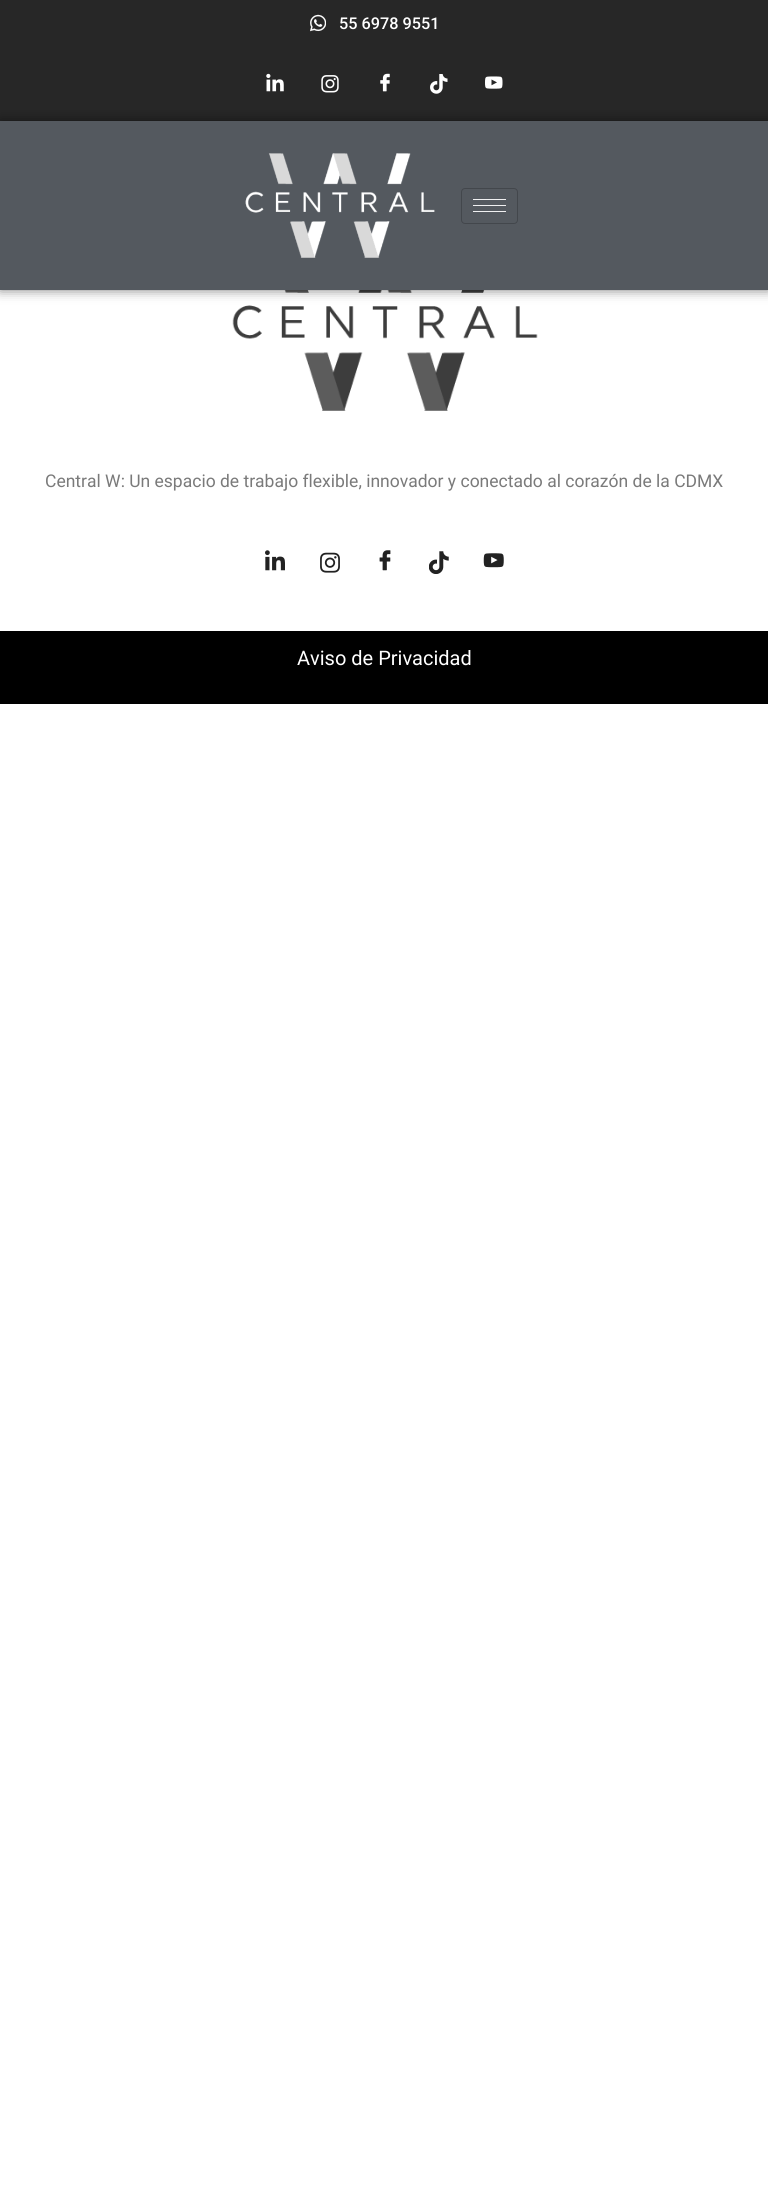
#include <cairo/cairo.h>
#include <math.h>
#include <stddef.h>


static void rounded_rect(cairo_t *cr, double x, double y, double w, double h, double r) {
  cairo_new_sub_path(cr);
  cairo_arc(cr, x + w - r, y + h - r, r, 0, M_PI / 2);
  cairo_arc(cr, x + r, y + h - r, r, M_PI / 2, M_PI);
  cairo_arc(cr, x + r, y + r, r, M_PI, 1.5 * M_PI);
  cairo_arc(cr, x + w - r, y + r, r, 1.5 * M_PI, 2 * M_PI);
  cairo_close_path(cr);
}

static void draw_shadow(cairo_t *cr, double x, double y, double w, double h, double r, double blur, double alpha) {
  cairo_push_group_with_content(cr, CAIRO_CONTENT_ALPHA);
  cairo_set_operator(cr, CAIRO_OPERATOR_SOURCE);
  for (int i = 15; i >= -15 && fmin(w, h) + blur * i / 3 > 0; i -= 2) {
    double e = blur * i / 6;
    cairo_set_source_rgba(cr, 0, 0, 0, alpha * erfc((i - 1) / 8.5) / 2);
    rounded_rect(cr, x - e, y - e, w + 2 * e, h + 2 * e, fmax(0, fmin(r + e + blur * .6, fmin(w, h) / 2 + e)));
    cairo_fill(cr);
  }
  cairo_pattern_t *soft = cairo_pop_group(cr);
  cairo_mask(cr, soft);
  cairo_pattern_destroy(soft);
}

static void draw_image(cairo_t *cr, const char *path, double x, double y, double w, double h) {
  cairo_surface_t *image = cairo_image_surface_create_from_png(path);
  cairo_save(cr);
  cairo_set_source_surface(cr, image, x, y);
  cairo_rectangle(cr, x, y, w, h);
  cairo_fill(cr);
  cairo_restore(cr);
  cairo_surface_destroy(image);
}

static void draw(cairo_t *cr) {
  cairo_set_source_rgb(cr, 1, 1, 1);
  cairo_paint(cr);
  cairo_set_source_rgb(cr, 39 / 255.0, 39 / 255.0, 39 / 255.0);
  cairo_rectangle(cr, 0, 0, 768, 121);
  cairo_fill(cr);
  draw_image(cr, "images/1.png", 310, 14, 16, 18);
  draw_image(cr, "images/2.png", 266, 73, 18, 19);
  draw_image(cr, "images/3.png", 321, 75, 18, 18);
  draw_image(cr, "images/4.png", 380, 73, 10, 19);
  draw_image(cr, "images/5.png", 430, 74, 18, 20);
  draw_image(cr, "images/6.png", 485, 76, 18, 13);
  draw_image(cr, "images/8.png", 232, 290, 306, 121);
  cairo_set_source_rgb(cr, 0, 0, 0);
  draw_shadow(cr, 0, 121, 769, 169, 0, 6, 0.5);
  cairo_set_source_rgb(cr, 84 / 255.0, 89 / 255.0, 95 / 255.0);
  cairo_rectangle(cr, 0, 121, 768, 169);
  cairo_fill(cr);
  draw_image(cr, "images/7.png", 245, 153, 190, 105);
  rounded_rect(cr, 461.5, 188.5, 56, 35, 3.5);
  cairo_set_source_rgb(cr, 67 / 255.0, 71 / 255.0, 76 / 255.0);
  cairo_set_line_width(cr, 1);
  cairo_stroke(cr);
  cairo_set_source_rgb(cr, 240 / 255.0, 240 / 255.0, 241 / 255.0);
  cairo_rectangle(cr, 473, 199, 33, 1);
  cairo_fill(cr);
  cairo_rectangle(cr, 473, 205, 33, 1);
  cairo_fill(cr);
  cairo_rectangle(cr, 473, 211, 33, 1);
  cairo_fill(cr);
  draw_image(cr, "images/9.png", 265, 550, 20, 21);
  draw_image(cr, "images/10.png", 320, 552, 20, 21);
  draw_image(cr, "images/11.png", 379, 550, 12, 21);
  draw_image(cr, "images/12.png", 429, 551, 20, 23);
  draw_image(cr, "images/13.png", 483, 553, 21, 15);
  cairo_set_source_rgb(cr, 0, 0, 0);
  cairo_rectangle(cr, 0, 631, 768, 73);
  cairo_fill(cr);
  cairo_select_font_face(cr, "Roboto Medium", CAIRO_FONT_SLANT_NORMAL, CAIRO_FONT_WEIGHT_NORMAL);
  cairo_set_font_size(cr, 16.25);
  cairo_set_source_rgb(cr, 1, 1, 1);
  cairo_move_to(cr, 339, 29);
  cairo_show_text(cr, "55 6978 9551");
  cairo_select_font_face(cr, "Roboto", CAIRO_FONT_SLANT_NORMAL, CAIRO_FONT_WEIGHT_NORMAL);
  cairo_set_font_size(cr, 17.5);
  cairo_set_source_rgb(cr, 122 / 255.0, 122 / 255.0, 122 / 255.0);
  cairo_move_to(cr, 45, 487);
  cairo_show_text(cr, "Central W: Un espacio de trabajo flexible, innovador y conectado al corazón de la CDMX");
  cairo_set_font_size(cr, 20);
  cairo_set_source_rgb(cr, 1, 1, 1);
  cairo_move_to(cr, 297, 665);
  cairo_show_text(cr, "Aviso de Privacidad");
}

int main(void) {
  cairo_surface_t *surface = cairo_image_surface_create(CAIRO_FORMAT_RGB24, 768, 2201);
  cairo_t *cr = cairo_create(surface);
  cairo_font_options_t *options = cairo_font_options_create();
  cairo_font_options_set_hint_metrics(options, CAIRO_HINT_METRICS_OFF);
  cairo_font_options_set_hint_style(options, CAIRO_HINT_STYLE_NONE);
  cairo_set_font_options(cr, options);
  cairo_set_miter_limit(cr, 4);
  draw(cr);
  cairo_surface_write_to_png(surface, "out.png");
  cairo_font_options_destroy(options);
  cairo_destroy(cr);
  cairo_surface_destroy(surface);
  return 0;
}
